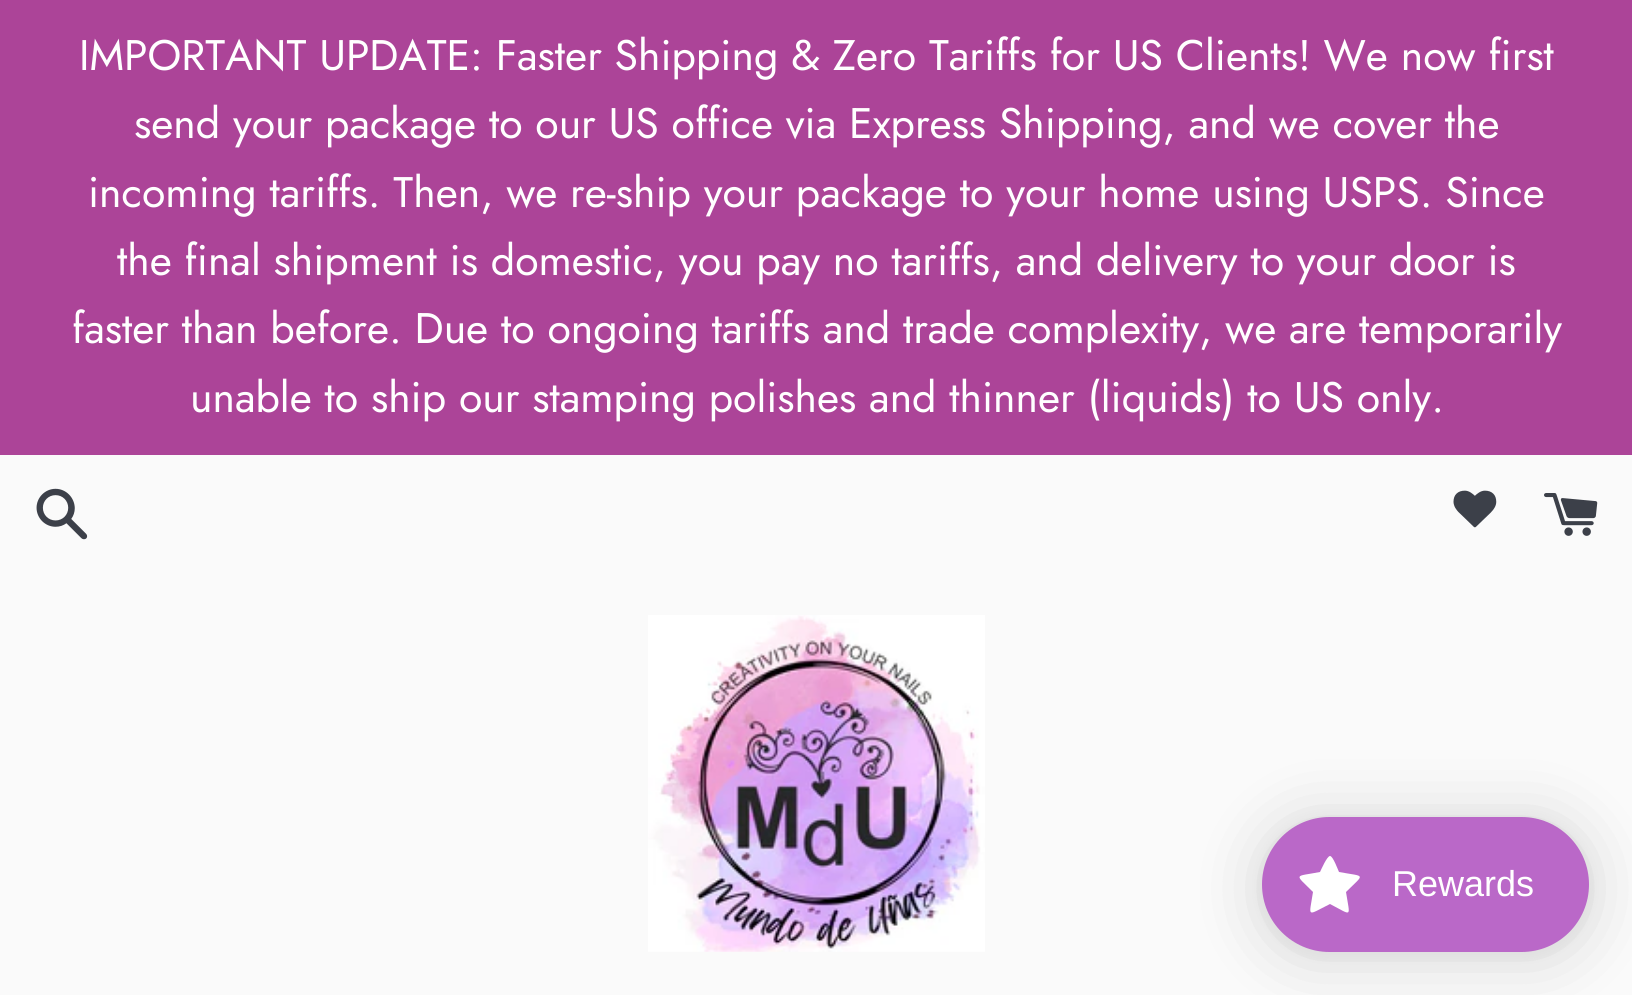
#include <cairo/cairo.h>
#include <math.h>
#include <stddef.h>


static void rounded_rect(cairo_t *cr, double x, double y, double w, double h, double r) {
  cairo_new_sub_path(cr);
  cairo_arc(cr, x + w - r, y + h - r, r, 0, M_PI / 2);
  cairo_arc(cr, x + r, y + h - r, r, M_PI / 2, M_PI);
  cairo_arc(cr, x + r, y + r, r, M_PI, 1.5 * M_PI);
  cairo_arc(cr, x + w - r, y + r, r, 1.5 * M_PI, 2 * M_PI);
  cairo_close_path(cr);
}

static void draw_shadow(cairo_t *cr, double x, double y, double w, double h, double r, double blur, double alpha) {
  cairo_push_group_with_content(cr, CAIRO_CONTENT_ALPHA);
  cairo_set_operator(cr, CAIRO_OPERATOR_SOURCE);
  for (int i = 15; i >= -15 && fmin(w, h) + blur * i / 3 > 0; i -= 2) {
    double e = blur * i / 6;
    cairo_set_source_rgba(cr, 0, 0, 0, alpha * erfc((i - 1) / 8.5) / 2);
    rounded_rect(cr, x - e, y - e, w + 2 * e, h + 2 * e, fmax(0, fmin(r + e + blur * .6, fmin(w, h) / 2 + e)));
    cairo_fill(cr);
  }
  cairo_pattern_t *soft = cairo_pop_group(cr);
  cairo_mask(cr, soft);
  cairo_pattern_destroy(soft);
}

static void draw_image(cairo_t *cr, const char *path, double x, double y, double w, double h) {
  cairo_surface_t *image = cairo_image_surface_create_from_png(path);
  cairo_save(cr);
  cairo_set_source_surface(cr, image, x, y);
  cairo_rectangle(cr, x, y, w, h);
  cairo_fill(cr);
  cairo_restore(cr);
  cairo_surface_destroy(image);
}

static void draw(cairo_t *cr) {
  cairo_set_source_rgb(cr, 250 / 255.0, 250 / 255.0, 250 / 255.0);
  cairo_paint(cr);
  cairo_set_source_rgb(cr, 172 / 255.0, 68 / 255.0, 152 / 255.0);
  cairo_rectangle(cr, 0, 0, 1632, 455);
  cairo_fill(cr);
  draw_image(cr, "images/1.png", 36, 488, 52, 52);
  draw_image(cr, "images/2.png", 1453, 490, 44, 38);
  draw_image(cr, "images/3.png", 1544, 493, 54, 43);
  draw_image(cr, "images/4.png", 648, 615, 337, 337);
  cairo_set_source_rgb(cr, 0, 0, 0);
  draw_shadow(cr, 1262, 821, 327, 135, 67.5, 34, 0.15);
  draw_shadow(cr, 1262, 819, 327, 135, 67.5, 7, 0.05);
  cairo_set_source_rgb(cr, 186 / 255.0, 104 / 255.0, 200 / 255.0);
  rounded_rect(cr, 1262, 817, 327, 135, 67.5);
  cairo_fill(cr);
  cairo_set_source_rgb(cr, 1, 1, 1);
  cairo_new_path(cr);
  cairo_move_to(cr, 1330, 856);
  cairo_curve_to(cr, 1327, 856, 1321, 870, 1320, 872);
  cairo_curve_to(cr, 1294, 877, 1294, 873, 1313, 892);
  cairo_curve_to(cr, 1309, 918, 1306, 916, 1330, 904);
  cairo_curve_to(cr, 1353, 916, 1350, 918, 1346, 892);
  cairo_curve_to(cr, 1365, 873, 1366, 877, 1339, 872);
  cairo_curve_to(cr, 1338, 870, 1333, 856, 1330, 856);
  cairo_close_path(cr);
  cairo_fill(cr);
  cairo_select_font_face(cr, "Jost", CAIRO_FONT_SLANT_NORMAL, CAIRO_FONT_WEIGHT_NORMAL);
  cairo_set_font_size(cr, 42.75);
  cairo_move_to(cr, 79, 70);
  cairo_show_text(cr, "IMPORTANT UPDATE: Faster Shipping & Zero Tariffs for US Clients! We now first");
  cairo_move_to(cr, 134, 138);
  cairo_show_text(cr, "send your package to our US office via Express Shipping, and we cover the");
  cairo_move_to(cr, 88, 207);
  cairo_show_text(cr, "incoming tariffs. Then, we re-ship your package to your home using USPS. Since");
  cairo_move_to(cr, 117, 275);
  cairo_show_text(cr, "the final shipment is domestic, you pay no tariffs, and delivery to your door is");
  cairo_move_to(cr, 72, 343);
  cairo_show_text(cr, "faster than before. Due to ongoing tariffs and trade complexity, we are temporarily");
  cairo_move_to(cr, 190, 412);
  cairo_show_text(cr, "unable to ship our stamping polishes and thinner (liquids) to US only.");
  cairo_select_font_face(cr, "Liberation Sans", CAIRO_FONT_SLANT_NORMAL, CAIRO_FONT_WEIGHT_NORMAL);
  cairo_set_font_size(cr, 36);
  cairo_move_to(cr, 1392, 896);
  cairo_show_text(cr, "Rewards");
}

int main(void) {
  cairo_surface_t *surface = cairo_image_surface_create(CAIRO_FORMAT_RGB24, 1632, 995);
  cairo_t *cr = cairo_create(surface);
  cairo_font_options_t *options = cairo_font_options_create();
  cairo_font_options_set_hint_metrics(options, CAIRO_HINT_METRICS_OFF);
  cairo_font_options_set_hint_style(options, CAIRO_HINT_STYLE_NONE);
  cairo_set_font_options(cr, options);
  cairo_set_miter_limit(cr, 4);
  draw(cr);
  cairo_surface_write_to_png(surface, "out.png");
  cairo_font_options_destroy(options);
  cairo_destroy(cr);
  cairo_surface_destroy(surface);
  return 0;
}
